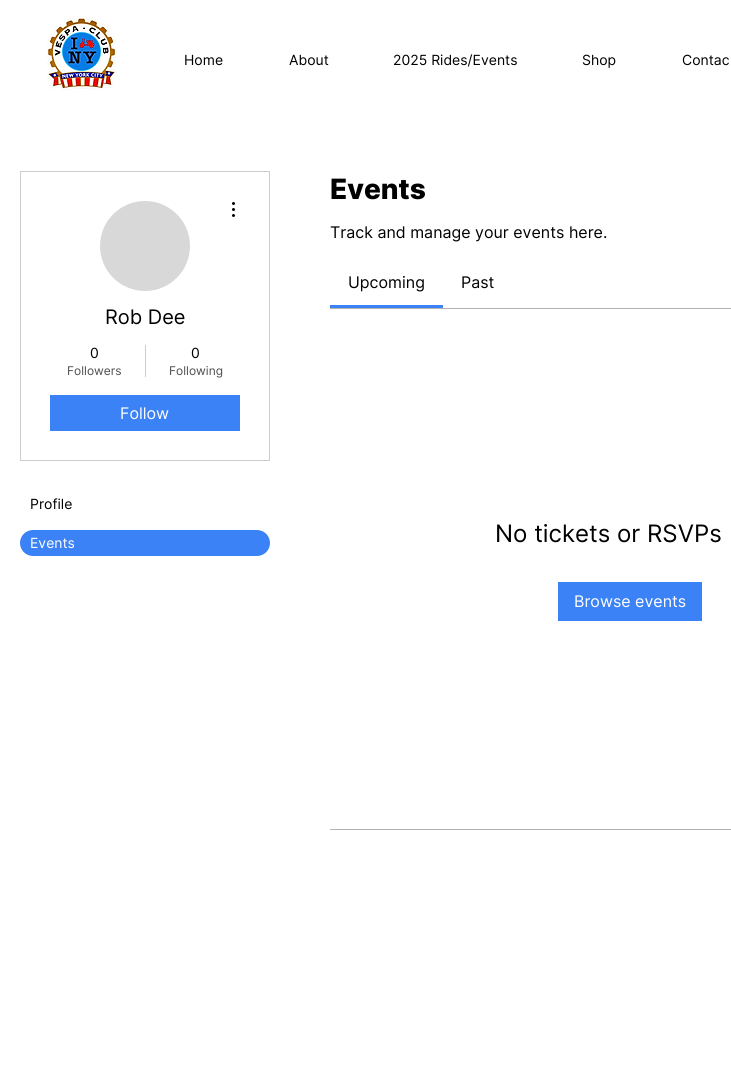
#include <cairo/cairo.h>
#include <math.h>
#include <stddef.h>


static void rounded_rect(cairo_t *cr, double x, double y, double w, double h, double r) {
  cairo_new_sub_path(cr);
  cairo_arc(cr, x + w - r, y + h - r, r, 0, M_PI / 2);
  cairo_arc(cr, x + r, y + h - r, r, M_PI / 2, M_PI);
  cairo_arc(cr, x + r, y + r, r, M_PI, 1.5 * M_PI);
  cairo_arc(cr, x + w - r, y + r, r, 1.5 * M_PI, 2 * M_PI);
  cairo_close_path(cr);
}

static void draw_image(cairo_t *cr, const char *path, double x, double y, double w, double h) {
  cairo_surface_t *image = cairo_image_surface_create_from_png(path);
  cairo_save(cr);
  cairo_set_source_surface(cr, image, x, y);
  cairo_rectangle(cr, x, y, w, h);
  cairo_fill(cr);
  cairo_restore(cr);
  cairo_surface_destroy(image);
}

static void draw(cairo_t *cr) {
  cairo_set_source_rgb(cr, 1, 1, 1);
  cairo_paint(cr);
  draw_image(cr, "images/1.png", 46, 17, 71, 74);
  cairo_rectangle(cr, 20.5, 171.5, 249, 289);
  cairo_set_source_rgb(cr, 204 / 255.0, 204 / 255.0, 204 / 255.0);
  cairo_set_line_width(cr, 1);
  cairo_stroke(cr);
  cairo_set_source_rgb(cr, 216 / 255.0, 216 / 255.0, 216 / 255.0);
  cairo_arc(cr, 145, 246, 45, 0, 2 * M_PI);
  cairo_fill(cr);
  draw_image(cr, "images/2.png", 232, 202, 3, 15);
  cairo_set_source_rgb(cr, 204 / 255.0, 204 / 255.0, 204 / 255.0);
  cairo_rectangle(cr, 145, 345, 1, 32);
  cairo_fill(cr);
  cairo_set_source_rgb(cr, 59 / 255.0, 130 / 255.0, 246 / 255.0);
  cairo_rectangle(cr, 50, 395, 190, 36);
  cairo_fill(cr);
  rounded_rect(cr, 20, 530, 250, 26, 13);
  cairo_fill(cr);
  cairo_rectangle(cr, 330, 305, 113, 3);
  cairo_fill(cr);
  cairo_set_source_rgb(cr, 179 / 255.0, 179 / 255.0, 179 / 255.0);
  cairo_rectangle(cr, 330, 308, 401, 1);
  cairo_fill(cr);
  cairo_set_source_rgb(cr, 59 / 255.0, 130 / 255.0, 246 / 255.0);
  cairo_rectangle(cr, 558, 582, 144, 39);
  cairo_fill(cr);
  cairo_set_source_rgb(cr, 179 / 255.0, 179 / 255.0, 179 / 255.0);
  cairo_rectangle(cr, 330, 829, 401, 1);
  cairo_fill(cr);
  cairo_select_font_face(cr, "Inter", CAIRO_FONT_SLANT_NORMAL, CAIRO_FONT_WEIGHT_NORMAL);
  cairo_set_font_size(cr, 14);
  cairo_set_source_rgb(cr, 0, 0, 0);
  cairo_move_to(cr, 184, 65);
  cairo_show_text(cr, "Home");
  cairo_move_to(cr, 289, 65);
  cairo_show_text(cr, "About");
  cairo_move_to(cr, 393, 65);
  cairo_show_text(cr, "2025 Rides/Events");
  cairo_move_to(cr, 582, 65);
  cairo_show_text(cr, "Shop");
  cairo_move_to(cr, 682, 65);
  cairo_show_text(cr, "Contac");
  cairo_set_font_size(cr, 20);
  cairo_move_to(cr, 105, 324);
  cairo_show_text(cr, "Rob Dee");
  cairo_set_font_size(cr, 14);
  cairo_move_to(cr, 90, 358);
  cairo_show_text(cr, "0");
  cairo_set_font_size(cr, 12);
  cairo_set_source_rgb(cr, 77 / 255.0, 77 / 255.0, 77 / 255.0);
  cairo_move_to(cr, 67, 375);
  cairo_show_text(cr, "Followers");
  cairo_set_font_size(cr, 14);
  cairo_set_source_rgb(cr, 0, 0, 0);
  cairo_move_to(cr, 191, 358);
  cairo_show_text(cr, "0");
  cairo_set_font_size(cr, 12);
  cairo_set_source_rgb(cr, 77 / 255.0, 77 / 255.0, 77 / 255.0);
  cairo_move_to(cr, 169, 375);
  cairo_show_text(cr, "Following");
  cairo_set_font_size(cr, 16);
  cairo_set_source_rgb(cr, 1, 1, 1);
  cairo_move_to(cr, 120, 419);
  cairo_show_text(cr, "Follow");
  cairo_set_font_size(cr, 14);
  cairo_set_source_rgb(cr, 0, 0, 0);
  cairo_move_to(cr, 30, 509);
  cairo_show_text(cr, "Profile");
  cairo_set_source_rgb(cr, 1, 1, 1);
  cairo_move_to(cr, 30, 548);
  cairo_show_text(cr, "Events");
  cairo_select_font_face(cr, "Inter ExtraBold", CAIRO_FONT_SLANT_NORMAL, CAIRO_FONT_WEIGHT_NORMAL);
  cairo_set_font_size(cr, 28);
  cairo_set_source_rgb(cr, 0, 0, 0);
  cairo_move_to(cr, 330, 199);
  cairo_show_text(cr, "Events");
  cairo_select_font_face(cr, "Inter", CAIRO_FONT_SLANT_NORMAL, CAIRO_FONT_WEIGHT_NORMAL);
  cairo_set_font_size(cr, 16);
  cairo_move_to(cr, 330, 238);
  cairo_show_text(cr, "Track and manage your events here.");
  cairo_move_to(cr, 348, 288);
  cairo_show_text(cr, "Upcoming");
  cairo_move_to(cr, 461, 288);
  cairo_show_text(cr, "Past");
  cairo_set_font_size(cr, 24);
  cairo_move_to(cr, 495, 542);
  cairo_show_text(cr, "No tickets or RSVPs");
  cairo_set_font_size(cr, 16);
  cairo_set_source_rgb(cr, 1, 1, 1);
  cairo_move_to(cr, 574, 607);
  cairo_show_text(cr, "Browse events");
}

int main(void) {
  cairo_surface_t *surface = cairo_image_surface_create(CAIRO_FORMAT_RGB24, 731, 1072);
  cairo_t *cr = cairo_create(surface);
  cairo_font_options_t *options = cairo_font_options_create();
  cairo_font_options_set_hint_metrics(options, CAIRO_HINT_METRICS_OFF);
  cairo_font_options_set_hint_style(options, CAIRO_HINT_STYLE_NONE);
  cairo_set_font_options(cr, options);
  cairo_set_miter_limit(cr, 4);
  draw(cr);
  cairo_surface_write_to_png(surface, "out.png");
  cairo_font_options_destroy(options);
  cairo_destroy(cr);
  cairo_surface_destroy(surface);
  return 0;
}
